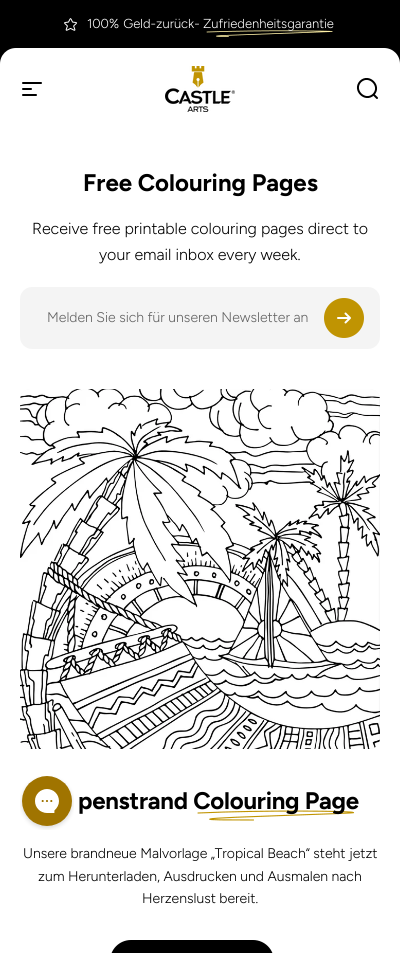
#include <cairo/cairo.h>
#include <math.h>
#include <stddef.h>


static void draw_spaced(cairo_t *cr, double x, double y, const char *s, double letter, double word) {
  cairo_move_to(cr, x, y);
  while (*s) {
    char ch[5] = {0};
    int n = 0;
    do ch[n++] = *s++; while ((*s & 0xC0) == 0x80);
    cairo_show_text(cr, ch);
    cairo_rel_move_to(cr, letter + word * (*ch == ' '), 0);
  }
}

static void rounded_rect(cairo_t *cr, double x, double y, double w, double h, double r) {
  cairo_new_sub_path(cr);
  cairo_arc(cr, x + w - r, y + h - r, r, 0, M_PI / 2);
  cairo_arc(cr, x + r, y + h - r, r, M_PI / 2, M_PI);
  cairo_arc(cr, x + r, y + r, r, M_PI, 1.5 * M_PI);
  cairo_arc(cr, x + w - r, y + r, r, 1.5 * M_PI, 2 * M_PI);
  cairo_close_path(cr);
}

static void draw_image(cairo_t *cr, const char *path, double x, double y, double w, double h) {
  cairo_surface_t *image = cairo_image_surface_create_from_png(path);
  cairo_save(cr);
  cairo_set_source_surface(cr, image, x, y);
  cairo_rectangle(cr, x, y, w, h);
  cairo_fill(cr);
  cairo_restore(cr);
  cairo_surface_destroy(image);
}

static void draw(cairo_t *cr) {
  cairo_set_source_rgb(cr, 1, 1, 1);
  cairo_paint(cr);
  cairo_set_source_rgb(cr, 0, 0, 0);
  cairo_rectangle(cr, 0, 0, 400, 16);
  cairo_fill(cr);
  cairo_new_path(cr);
  cairo_move_to(cr, 16, 0);
  cairo_line_to(cr, 384, 0);
  cairo_curve_to(cr, 393, 0, 400, 7, 400, 16);
  cairo_line_to(cr, 400, 64);
  cairo_line_to(cr, 0, 64);
  cairo_line_to(cr, 0, 16);
  cairo_curve_to(cr, 0, 7, 7, 0, 16, 0);
  cairo_close_path(cr);
  cairo_fill(cr);
  draw_image(cr, "images/1.png", 64, 18, 13, 13);
  cairo_new_path(cr);
  cairo_move_to(cr, 207, 32);
  cairo_curve_to(cr, 259.5, 30, 332.5, 31, 332.5, 31.5);
  cairo_line_to(cr, 222.5, 35.5);
  cairo_curve_to(cr, 207, 36.5, 225.5, 36.5, 228.5, 36.5);
  cairo_set_source_rgb(cr, 1, 241 / 255.0, 167 / 255.0);
  cairo_set_line_width(cr, 0.8);
  cairo_set_line_cap(cr, CAIRO_LINE_CAP_ROUND);
  cairo_stroke(cr);
  cairo_set_source_rgb(cr, 1, 1, 1);
  cairo_new_path(cr);
  cairo_move_to(cr, 16, 48);
  cairo_line_to(cr, 384, 48);
  cairo_curve_to(cr, 393, 48, 400, 55, 400, 64);
  cairo_line_to(cr, 400, 130);
  cairo_line_to(cr, 0, 130);
  cairo_line_to(cr, 0, 64);
  cairo_curve_to(cr, 0, 55, 7, 48, 16, 48);
  cairo_close_path(cr);
  cairo_fill(cr);
  cairo_new_path(cr);
  cairo_move_to(cr, 23, 83);
  cairo_line_to(cr, 41, 83);
  cairo_move_to(cr, 23, 89);
  cairo_line_to(cr, 31, 89);
  cairo_move_to(cr, 23, 95);
  cairo_line_to(cr, 36, 95);
  cairo_set_source_rgb(cr, 0, 0, 0);
  cairo_set_line_width(cr, 2);
  cairo_stroke(cr);
  draw_image(cr, "images/2.png", 165, 66, 70, 46);
  cairo_new_path(cr);
  cairo_move_to(cr, 377, 98);
  cairo_line_to(cr, 373.5, 94.5);
  cairo_move_to(cr, 373.5, 94.5);
  cairo_curve_to(cr, 381.5, 86, 369, 73.5, 360.5, 81.5);
  cairo_curve_to(cr, 352.5, 90, 365, 102.5, 373.5, 94.5);
  cairo_close_path(cr);
  cairo_stroke(cr);
  cairo_set_source_rgb(cr, 244 / 255.0, 244 / 255.0, 244 / 255.0);
  rounded_rect(cr, 20, 287, 360, 62, 12);
  cairo_fill(cr);
  cairo_set_source_rgb(cr, 192 / 255.0, 148 / 255.0, 2 / 255.0);
  cairo_arc(cr, 344, 318, 19, 0, 2 * M_PI);
  cairo_fill_preserve(cr);
  cairo_set_line_cap(cr, CAIRO_LINE_CAP_BUTT);
  cairo_stroke(cr);
  cairo_new_path(cr);
  cairo_move_to(cr, 338, 318);
  cairo_line_to(cr, 350, 318);
  cairo_move_to(cr, 350, 318);
  cairo_line_to(cr, 345.5, 313.5);
  cairo_move_to(cr, 350, 318);
  cairo_line_to(cr, 345.5, 322.5);
  cairo_set_source_rgb(cr, 1, 1, 1);
  cairo_set_line_cap(cr, CAIRO_LINE_CAP_ROUND);
  cairo_set_line_join(cr, CAIRO_LINE_JOIN_ROUND);
  cairo_stroke(cr);
  cairo_set_source_rgb(cr, 248 / 255.0, 248 / 255.0, 248 / 255.0);
  rounded_rect(cr, 20, 389, 360, 360, 10);
  cairo_fill(cr);
  draw_image(cr, "images/3.png", 20, 389, 360, 360);
  cairo_new_path(cr);
  cairo_move_to(cr, 198, 813);
  cairo_curve_to(cr, 263, 810, 353, 811, 353.5, 812.5);
  cairo_curve_to(cr, 361.5, 813.5, 214, 817, 210, 819);
  cairo_curve_to(cr, 207, 820, 226.5, 820, 253.5, 820);
  cairo_set_source_rgb(cr, 192 / 255.0, 148 / 255.0, 2 / 255.0);
  cairo_set_line_width(cr, 1.1);
  cairo_set_line_join(cr, CAIRO_LINE_JOIN_MITER);
  cairo_stroke(cr);
  cairo_set_source_rgb(cr, 0, 0, 0);
  rounded_rect(cr, 111, 941, 162, 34, 20);
  cairo_fill_preserve(cr);
  cairo_set_line_width(cr, 2);
  cairo_set_line_cap(cr, CAIRO_LINE_CAP_BUTT);
  cairo_stroke(cr);
  draw_image(cr, "images/4.png", 20, 776, 54, 54);
  cairo_select_font_face(cr, "Figtree Light", CAIRO_FONT_SLANT_NORMAL, CAIRO_FONT_WEIGHT_NORMAL);
  cairo_set_font_size(cr, 13);
  cairo_set_source_rgb(cr, 1, 1, 1);
  draw_spaced(cr, 87, 28, "100% Geld-zurück-", 0, 1);
  cairo_move_to(cr, 203, 28);
  cairo_show_text(cr, "Zufriedenheitsgarantie");
  cairo_select_font_face(cr, "Figtree", CAIRO_FONT_SLANT_NORMAL, CAIRO_FONT_WEIGHT_BOLD);
  cairo_set_font_size(cr, 24);
  cairo_set_source_rgb(cr, 0, 0, 0);
  cairo_move_to(cr, 83, 191);
  cairo_show_text(cr, "Free Colouring Pages");
  cairo_select_font_face(cr, "Figtree Light", CAIRO_FONT_SLANT_NORMAL, CAIRO_FONT_WEIGHT_NORMAL);
  cairo_set_font_size(cr, 16);
  cairo_move_to(cr, 32, 234);
  cairo_show_text(cr, "Receive free printable colouring pages direct to");
  cairo_move_to(cr, 99, 260);
  cairo_show_text(cr, "your email inbox every week.");
  cairo_set_font_size(cr, 14);
  cairo_set_source_rgb(cr, 98 / 255.0, 98 / 255.0, 98 / 255.0);
  cairo_move_to(cr, 47, 322);
  cairo_show_text(cr, "Melden Sie sich für unseren Newsletter an");
  cairo_select_font_face(cr, "Figtree", CAIRO_FONT_SLANT_NORMAL, CAIRO_FONT_WEIGHT_BOLD);
  cairo_set_font_size(cr, 24);
  cairo_set_source_rgb(cr, 0, 0, 0);
  draw_spaced(cr, 78, 809, "penstrand Colouring Page", -0.25, 0);
  cairo_select_font_face(cr, "Figtree Light", CAIRO_FONT_SLANT_NORMAL, CAIRO_FONT_WEIGHT_NORMAL);
  cairo_set_font_size(cr, 14);
  cairo_move_to(cr, 23, 858);
  cairo_show_text(cr, "Unsere brandneue Malvorlage „Tropical Beach“ steht jetzt");
  cairo_move_to(cr, 38, 881);
  cairo_show_text(cr, "zum Herunterladen, Ausdrucken und Ausmalen nach");
  cairo_move_to(cr, 142, 903);
  cairo_show_text(cr, "Herzenslust bereit.");
}

int main(void) {
  cairo_surface_t *surface = cairo_image_surface_create(CAIRO_FORMAT_RGB24, 400, 953);
  cairo_t *cr = cairo_create(surface);
  cairo_font_options_t *options = cairo_font_options_create();
  cairo_font_options_set_hint_metrics(options, CAIRO_HINT_METRICS_OFF);
  cairo_font_options_set_hint_style(options, CAIRO_HINT_STYLE_NONE);
  cairo_set_font_options(cr, options);
  cairo_set_miter_limit(cr, 4);
  draw(cr);
  cairo_surface_write_to_png(surface, "out.png");
  cairo_font_options_destroy(options);
  cairo_destroy(cr);
  cairo_surface_destroy(surface);
  return 0;
}
